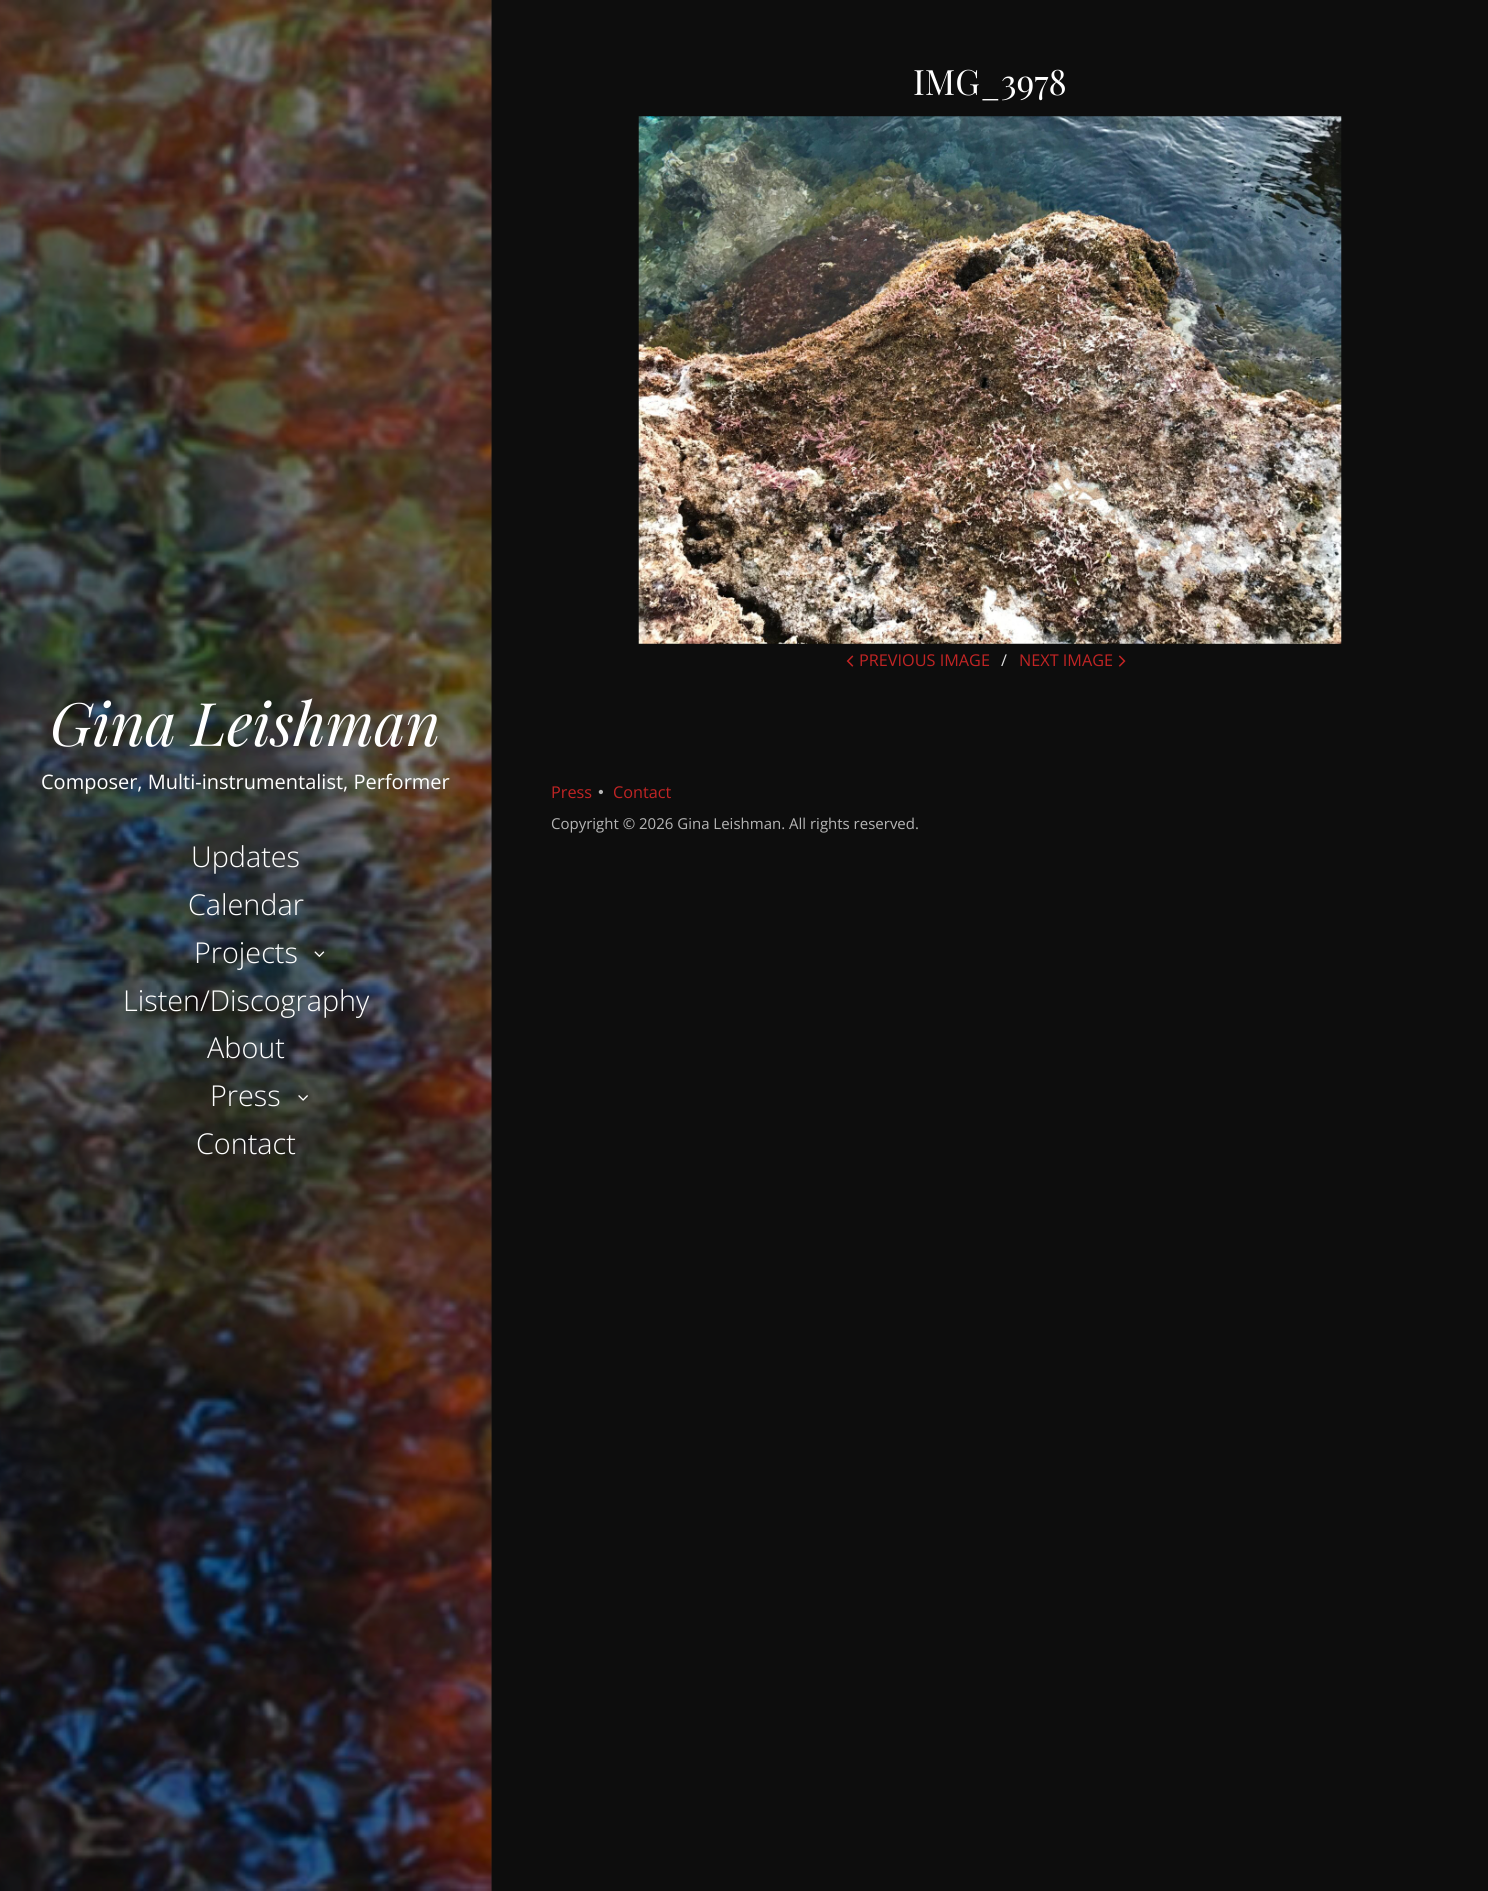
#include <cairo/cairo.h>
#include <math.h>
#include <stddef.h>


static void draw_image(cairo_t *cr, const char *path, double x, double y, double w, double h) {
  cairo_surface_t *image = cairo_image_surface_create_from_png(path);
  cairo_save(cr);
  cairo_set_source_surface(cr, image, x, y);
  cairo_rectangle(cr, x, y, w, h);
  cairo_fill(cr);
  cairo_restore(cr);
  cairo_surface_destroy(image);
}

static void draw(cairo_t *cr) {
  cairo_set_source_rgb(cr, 13 / 255.0, 13 / 255.0, 13 / 255.0);
  cairo_paint(cr);
  draw_image(cr, "images/1.png", 638, 116, 704, 528);
  draw_image(cr, "images/2.png", 846, 655, 8, 12);
  draw_image(cr, "images/3.png", 1118, 655, 8, 12);
  draw_image(cr, "images/4.png", 598, 789, 5, 6);
  draw_image(cr, "images/5.png", 0, 0, 492, 1891);
  draw_image(cr, "images/6.png", 314, 951, 11, 6);
  draw_image(cr, "images/7.png", 298, 1095, 10, 6);
  cairo_select_font_face(cr, "Playfair Display", CAIRO_FONT_SLANT_NORMAL, CAIRO_FONT_WEIGHT_NORMAL);
  cairo_set_font_size(cr, 35);
  cairo_set_source_rgb(cr, 1, 1, 1);
  cairo_move_to(cr, 913, 95);
  cairo_show_text(cr, "IMG_3978");
  cairo_select_font_face(cr, "Open Sans", CAIRO_FONT_SLANT_NORMAL, CAIRO_FONT_WEIGHT_NORMAL);
  cairo_set_font_size(cr, 16.25);
  cairo_set_source_rgb(cr, 193 / 255.0, 36 / 255.0, 36 / 255.0);
  cairo_move_to(cr, 859, 666);
  cairo_show_text(cr, "PREVIOUS IMAGE");
  cairo_set_source_rgb(cr, 224 / 255.0, 224 / 255.0, 224 / 255.0);
  cairo_move_to(cr, 1001, 666);
  cairo_show_text(cr, "∕");
  cairo_set_source_rgb(cr, 193 / 255.0, 36 / 255.0, 36 / 255.0);
  cairo_move_to(cr, 1019, 666);
  cairo_show_text(cr, "NEXT IMAGE");
  cairo_move_to(cr, 551, 798);
  cairo_show_text(cr, "Press");
  cairo_move_to(cr, 613, 798);
  cairo_show_text(cr, "Contact");
  cairo_set_font_size(cr, 15);
  cairo_set_source_rgb(cr, 181 / 255.0, 181 / 255.0, 181 / 255.0);
  cairo_move_to(cr, 551, 829);
  cairo_show_text(cr, "Copyright © 2026 Gina Leishman. All rights reserved.");
  cairo_select_font_face(cr, "Playfair Display", CAIRO_FONT_SLANT_ITALIC, CAIRO_FONT_WEIGHT_NORMAL);
  cairo_set_font_size(cr, 60);
  cairo_set_source_rgb(cr, 1, 1, 1);
  cairo_move_to(cr, 50, 746);
  cairo_show_text(cr, "Gina Leishman");
  cairo_select_font_face(cr, "Open Sans", CAIRO_FONT_SLANT_NORMAL, CAIRO_FONT_WEIGHT_NORMAL);
  cairo_set_font_size(cr, 20);
  cairo_move_to(cr, 41, 789);
  cairo_show_text(cr, "Composer, Multi-instrumentalist, Performer");
  cairo_select_font_face(cr, "Open Sans Light", CAIRO_FONT_SLANT_NORMAL, CAIRO_FONT_WEIGHT_NORMAL);
  cairo_set_font_size(cr, 28.75);
  cairo_move_to(cr, 191, 867);
  cairo_show_text(cr, "Updates");
  cairo_move_to(cr, 188, 915);
  cairo_show_text(cr, "Calendar");
  cairo_move_to(cr, 194, 963);
  cairo_show_text(cr, "Projects");
  cairo_move_to(cr, 123, 1011);
  cairo_show_text(cr, "Listen/Discography");
  cairo_move_to(cr, 207, 1058);
  cairo_show_text(cr, "About");
  cairo_move_to(cr, 210, 1106);
  cairo_show_text(cr, "Press");
  cairo_move_to(cr, 196, 1154);
  cairo_show_text(cr, "Contact");
}

int main(void) {
  cairo_surface_t *surface = cairo_image_surface_create(CAIRO_FORMAT_RGB24, 1488, 1891);
  cairo_t *cr = cairo_create(surface);
  cairo_font_options_t *options = cairo_font_options_create();
  cairo_font_options_set_hint_metrics(options, CAIRO_HINT_METRICS_OFF);
  cairo_font_options_set_hint_style(options, CAIRO_HINT_STYLE_NONE);
  cairo_set_font_options(cr, options);
  cairo_set_miter_limit(cr, 4);
  draw(cr);
  cairo_surface_write_to_png(surface, "out.png");
  cairo_font_options_destroy(options);
  cairo_destroy(cr);
  cairo_surface_destroy(surface);
  return 0;
}
